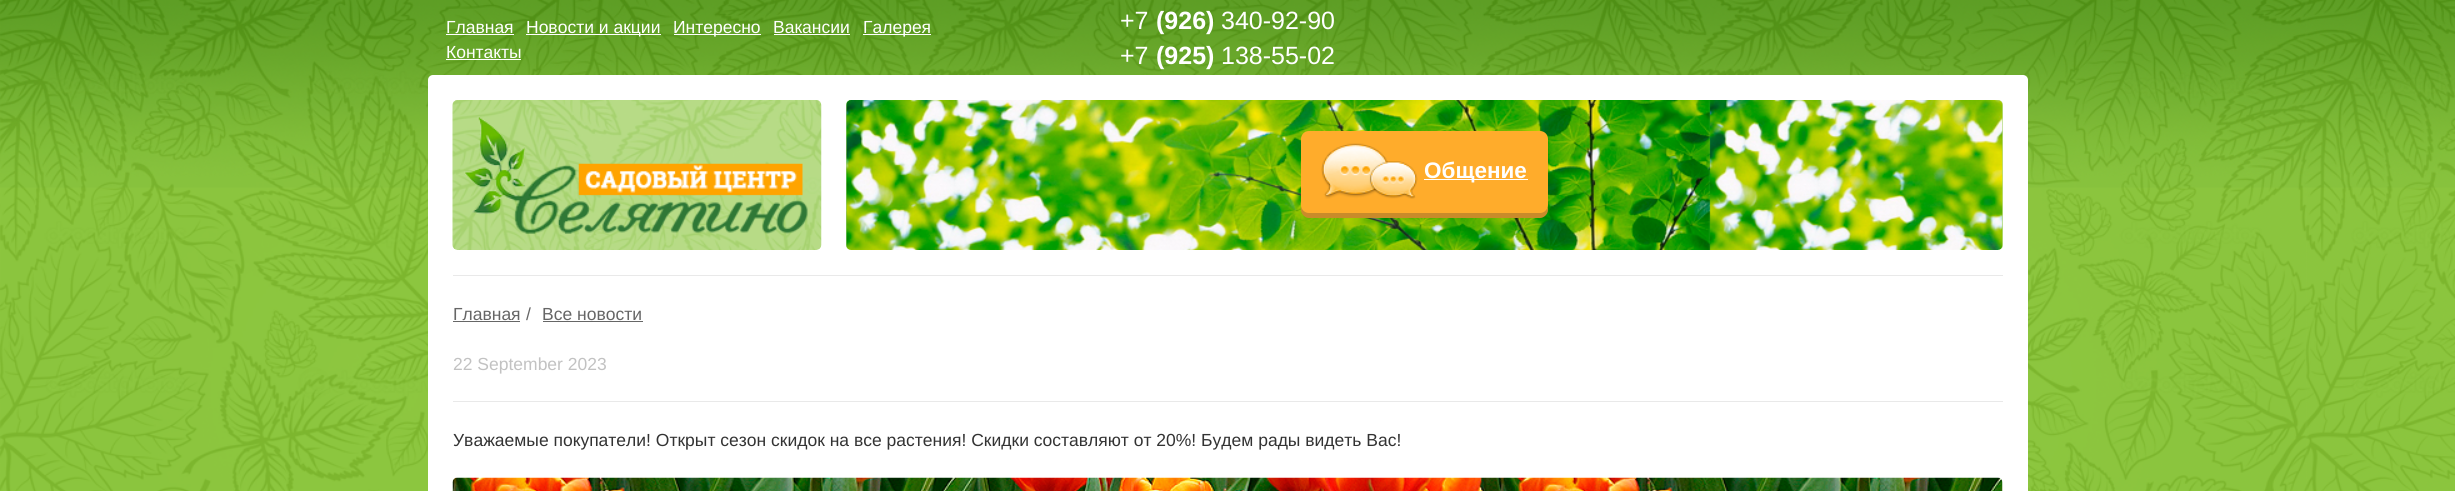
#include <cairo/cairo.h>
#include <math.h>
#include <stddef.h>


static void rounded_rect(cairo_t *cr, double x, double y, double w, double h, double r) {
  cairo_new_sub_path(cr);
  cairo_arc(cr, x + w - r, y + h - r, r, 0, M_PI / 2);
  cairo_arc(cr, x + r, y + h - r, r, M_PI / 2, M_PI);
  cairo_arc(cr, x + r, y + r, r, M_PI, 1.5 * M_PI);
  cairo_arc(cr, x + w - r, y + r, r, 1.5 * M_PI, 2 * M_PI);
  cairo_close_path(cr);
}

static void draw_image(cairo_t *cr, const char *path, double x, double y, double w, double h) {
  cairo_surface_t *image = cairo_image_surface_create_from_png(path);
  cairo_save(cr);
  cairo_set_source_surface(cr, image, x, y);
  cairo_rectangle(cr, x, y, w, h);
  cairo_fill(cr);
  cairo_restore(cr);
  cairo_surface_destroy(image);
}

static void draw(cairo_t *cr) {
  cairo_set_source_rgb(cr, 132 / 255.0, 194 / 255.0, 50 / 255.0);
  cairo_paint(cr);
  draw_image(cr, "images/1.png", 0, 0, 2455, 491);
  cairo_set_source_rgb(cr, 1, 1, 1);
  cairo_rectangle(cr, 446, 34, 68, 1);
  cairo_fill(cr);
  cairo_rectangle(cr, 526, 34, 135, 1);
  cairo_fill(cr);
  cairo_rectangle(cr, 674, 34, 87, 1);
  cairo_fill(cr);
  cairo_rectangle(cr, 774, 34, 76, 1);
  cairo_fill(cr);
  cairo_rectangle(cr, 863, 34, 68, 1);
  cairo_fill(cr);
  cairo_rectangle(cr, 446, 59, 75, 1);
  cairo_fill(cr);
  rounded_rect(cr, 428, 75, 1600, 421, 5);
  cairo_fill(cr);
  draw_image(cr, "images/2.png", 452, 100, 370, 150);
  draw_image(cr, "images/3.png", 464, 116, 344, 118);
  cairo_set_source_rgb(cr, 183 / 255.0, 220 / 255.0, 134 / 255.0);
  rounded_rect(cr, 846, 100, 1157, 150, 5);
  cairo_fill(cr);
  draw_image(cr, "images/4.png", 846, 100, 1157, 150);
  cairo_set_source_rgb(cr, 201 / 255.0, 139 / 255.0, 42 / 255.0);
  cairo_new_path(cr);
  cairo_move_to(cr, 1301, 142);
  cairo_line_to(cr, 1301, 210);
  cairo_curve_to(cr, 1301, 214, 1305, 218, 1309, 218);
  cairo_line_to(cr, 1540, 218);
  cairo_curve_to(cr, 1544, 218, 1548, 214, 1548, 210);
  cairo_line_to(cr, 1548, 144);
  cairo_line_to(cr, 1548, 141);
  cairo_line_to(cr, 1548, 205);
  cairo_curve_to(cr, 1548, 209, 1544, 212, 1540, 212);
  cairo_line_to(cr, 1309, 212);
  cairo_curve_to(cr, 1305, 212, 1301, 209, 1301, 205);
  cairo_close_path(cr);
  cairo_fill(cr);
  cairo_set_source_rgb(cr, 1, 172 / 255.0, 43 / 255.0);
  rounded_rect(cr, 1301, 131, 247, 82, 8);
  cairo_fill(cr);
  draw_image(cr, "images/5.png", 1321, 143, 97, 56);
  cairo_set_source_rgb(cr, 1, 1, 1);
  cairo_rectangle(cr, 1424, 179, 104, 1);
  cairo_fill(cr);
  cairo_set_source_rgb(cr, 233 / 255.0, 233 / 255.0, 233 / 255.0);
  cairo_rectangle(cr, 453, 275, 1550, 1);
  cairo_fill(cr);
  cairo_set_source_rgb(cr, 102 / 255.0, 102 / 255.0, 102 / 255.0);
  cairo_rectangle(cr, 453, 321, 67, 1);
  cairo_fill(cr);
  cairo_rectangle(cr, 543, 321, 100, 1);
  cairo_fill(cr);
  cairo_set_source_rgb(cr, 233 / 255.0, 233 / 255.0, 233 / 255.0);
  cairo_rectangle(cr, 453, 401, 1550, 1);
  cairo_fill(cr);
  draw_image(cr, "images/6.png", 452, 477, 1551, 14);
  cairo_select_font_face(cr, "Liberation Sans", CAIRO_FONT_SLANT_NORMAL, CAIRO_FONT_WEIGHT_NORMAL);
  cairo_set_font_size(cr, 17.5);
  cairo_set_source_rgb(cr, 1, 1, 1);
  cairo_move_to(cr, 446, 33);
  cairo_show_text(cr, "Главная");
  cairo_move_to(cr, 526, 33);
  cairo_show_text(cr, "Новости и акции");
  cairo_move_to(cr, 673, 33);
  cairo_show_text(cr, "Интересно");
  cairo_move_to(cr, 773, 33);
  cairo_show_text(cr, "Вакансии");
  cairo_move_to(cr, 863, 33);
  cairo_show_text(cr, "Галерея");
  cairo_move_to(cr, 446, 58);
  cairo_show_text(cr, "Контакты");
  cairo_set_font_size(cr, 25);
  cairo_move_to(cr, 1120, 29);
  cairo_show_text(cr, "+7");
  cairo_select_font_face(cr, "Liberation Sans", CAIRO_FONT_SLANT_NORMAL, CAIRO_FONT_WEIGHT_BOLD);
  cairo_move_to(cr, 1156, 29);
  cairo_show_text(cr, "(926)");
  cairo_select_font_face(cr, "Liberation Sans", CAIRO_FONT_SLANT_NORMAL, CAIRO_FONT_WEIGHT_NORMAL);
  cairo_move_to(cr, 1221, 29);
  cairo_show_text(cr, "340-92-90");
  cairo_move_to(cr, 1120, 64);
  cairo_show_text(cr, "+7");
  cairo_select_font_face(cr, "Liberation Sans", CAIRO_FONT_SLANT_NORMAL, CAIRO_FONT_WEIGHT_BOLD);
  cairo_move_to(cr, 1156, 64);
  cairo_show_text(cr, "(925)");
  cairo_select_font_face(cr, "Liberation Sans", CAIRO_FONT_SLANT_NORMAL, CAIRO_FONT_WEIGHT_NORMAL);
  cairo_move_to(cr, 1221, 64);
  cairo_show_text(cr, "138-55-02");
  cairo_select_font_face(cr, "Liberation Sans", CAIRO_FONT_SLANT_NORMAL, CAIRO_FONT_WEIGHT_BOLD);
  cairo_set_font_size(cr, 22.5);
  cairo_move_to(cr, 1424, 178);
  cairo_show_text(cr, "Общение");
  cairo_select_font_face(cr, "Liberation Sans", CAIRO_FONT_SLANT_NORMAL, CAIRO_FONT_WEIGHT_NORMAL);
  cairo_set_font_size(cr, 17.5);
  cairo_set_source_rgb(cr, 102 / 255.0, 102 / 255.0, 102 / 255.0);
  cairo_move_to(cr, 453, 320);
  cairo_show_text(cr, "Главная");
  cairo_move_to(cr, 526, 320);
  cairo_show_text(cr, "/");
  cairo_move_to(cr, 542, 320);
  cairo_show_text(cr, "Все новости");
  cairo_set_source_rgb(cr, 194 / 255.0, 194 / 255.0, 194 / 255.0);
  cairo_move_to(cr, 453, 370);
  cairo_show_text(cr, "22 September 2023");
  cairo_set_source_rgb(cr, 51 / 255.0, 51 / 255.0, 51 / 255.0);
  cairo_move_to(cr, 453, 446);
  cairo_show_text(cr, "Уважаемые покупатели! Открыт сезон скидок на все растения! Скидки составляют от 20%! Будем рады видеть Вас!");
}

int main(void) {
  cairo_surface_t *surface = cairo_image_surface_create(CAIRO_FORMAT_RGB24, 2455, 491);
  cairo_t *cr = cairo_create(surface);
  cairo_font_options_t *options = cairo_font_options_create();
  cairo_font_options_set_hint_metrics(options, CAIRO_HINT_METRICS_OFF);
  cairo_font_options_set_hint_style(options, CAIRO_HINT_STYLE_NONE);
  cairo_set_font_options(cr, options);
  cairo_set_miter_limit(cr, 4);
  draw(cr);
  cairo_surface_write_to_png(surface, "out.png");
  cairo_font_options_destroy(options);
  cairo_destroy(cr);
  cairo_surface_destroy(surface);
  return 0;
}
